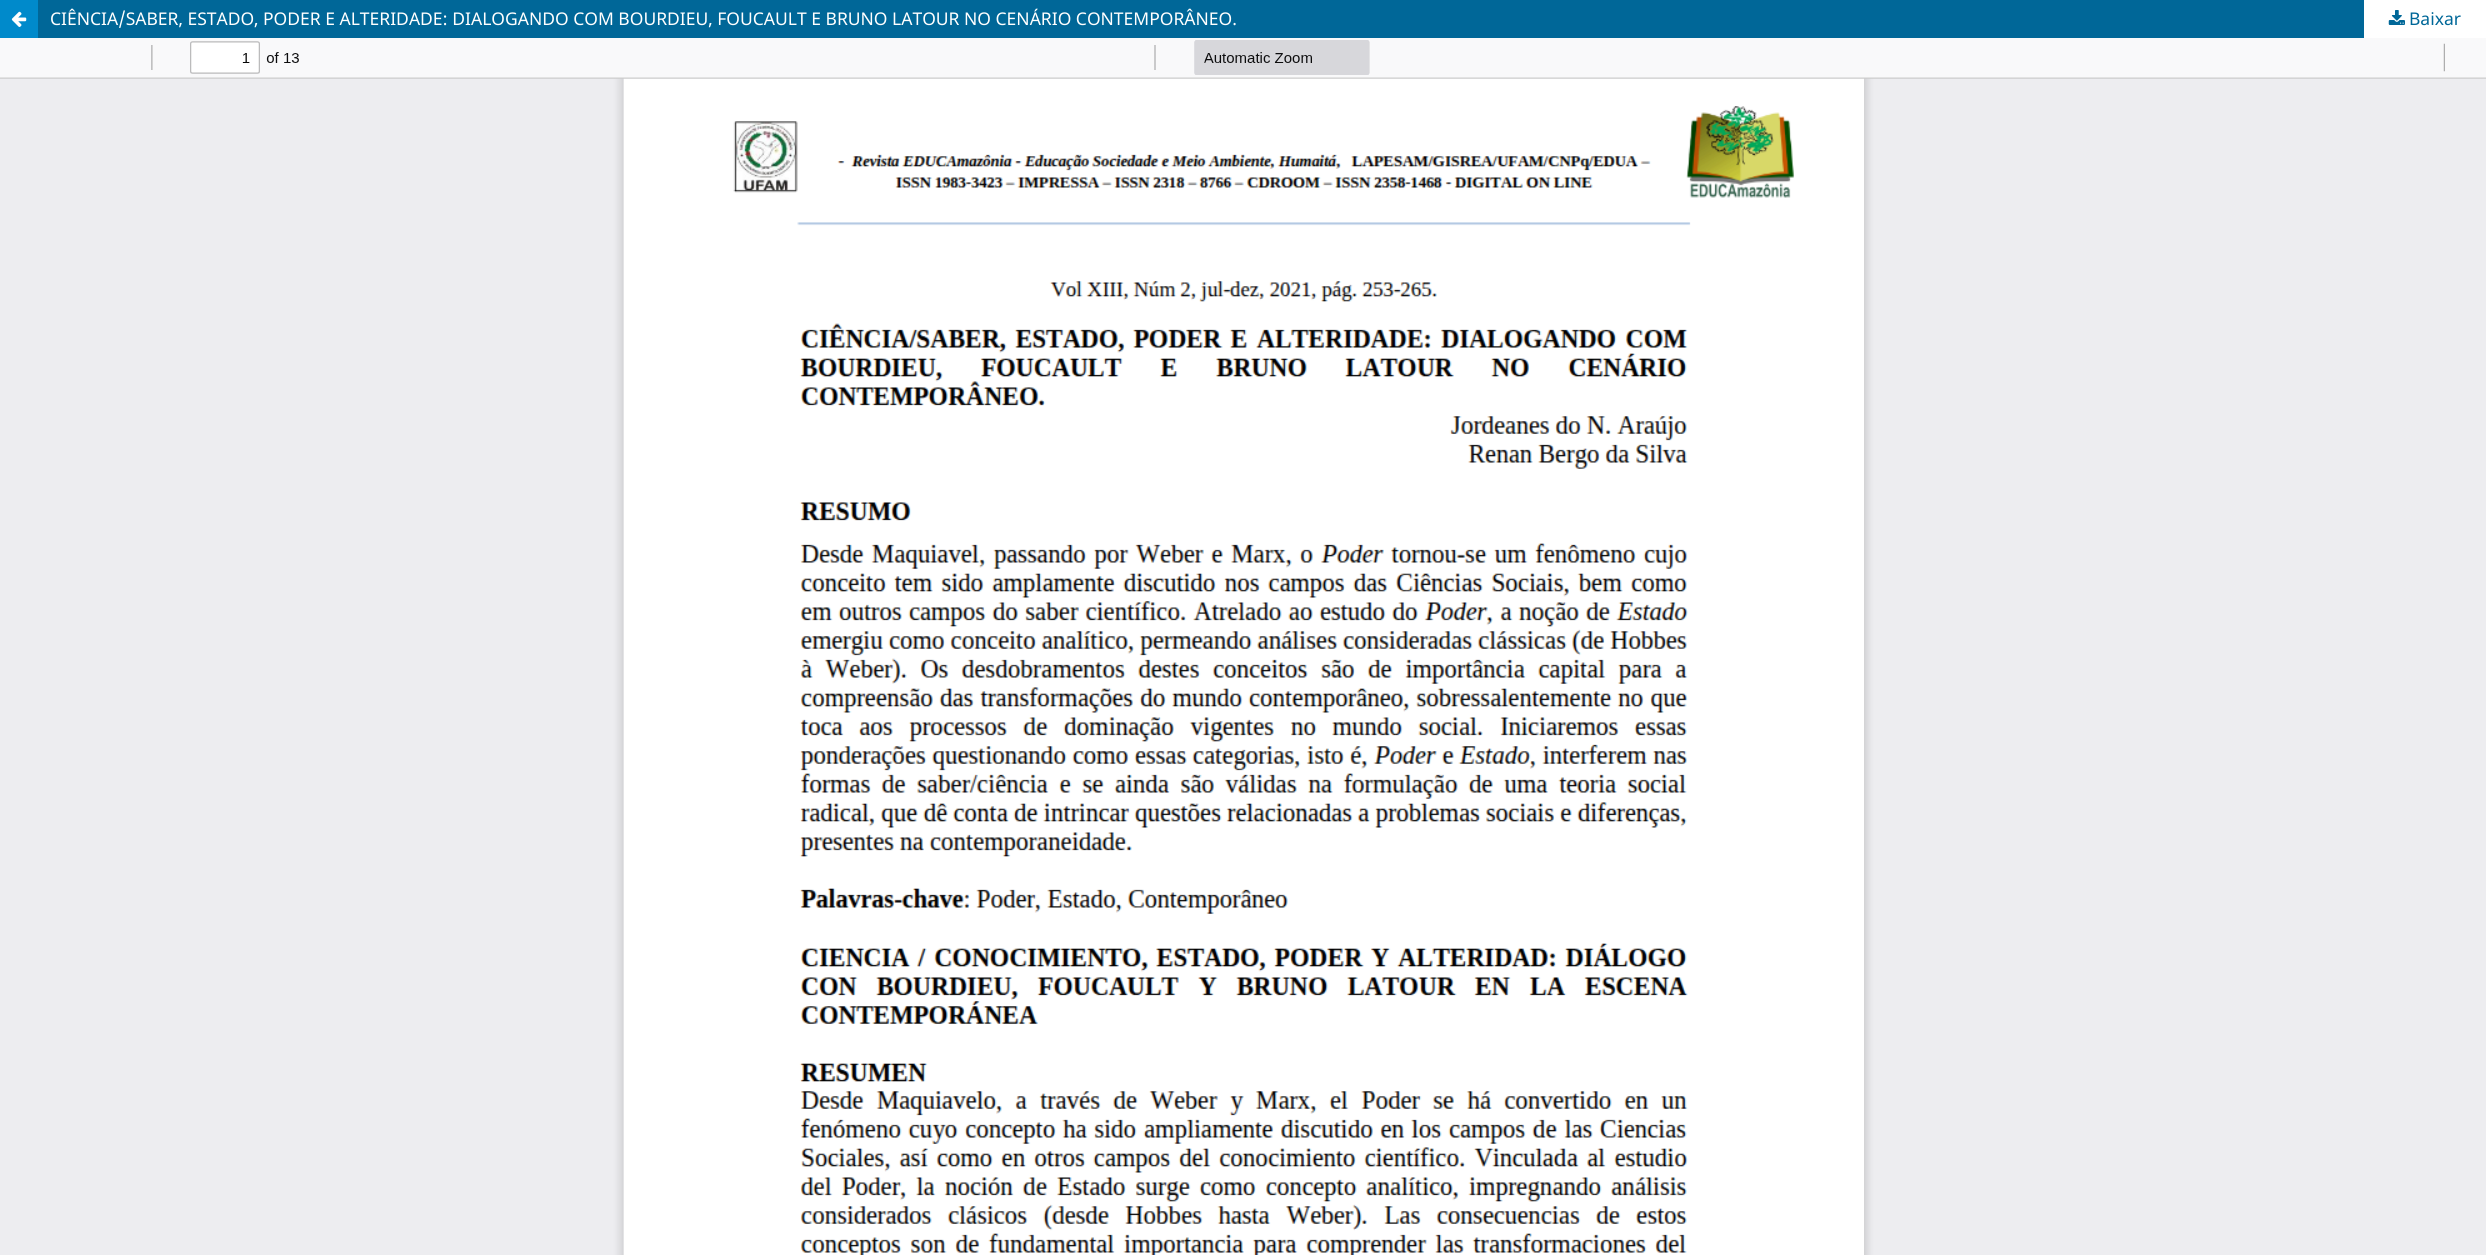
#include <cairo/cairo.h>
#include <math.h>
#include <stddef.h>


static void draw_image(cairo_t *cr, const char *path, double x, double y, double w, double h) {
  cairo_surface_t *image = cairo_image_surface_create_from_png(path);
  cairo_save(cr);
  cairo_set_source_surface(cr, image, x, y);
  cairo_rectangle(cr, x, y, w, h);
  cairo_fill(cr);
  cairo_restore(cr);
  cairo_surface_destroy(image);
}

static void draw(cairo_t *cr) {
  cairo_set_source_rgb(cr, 1, 1, 1);
  cairo_paint(cr);
  cairo_set_source_rgb(cr, 0, 103 / 255.0, 152 / 255.0);
  cairo_rectangle(cr, 38, 0, 2326, 38);
  cairo_fill(cr);
  cairo_set_source_rgb(cr, 0, 138 / 255.0, 203 / 255.0);
  cairo_rectangle(cr, 0, 0, 38, 38);
  cairo_fill(cr);
  draw_image(cr, "images/1.png", 11, 11, 16, 16);
  draw_image(cr, "images/2.png", 2388, 10, 17, 15);
  draw_image(cr, "images/3.png", 0, 38, 2486, 1217);
  cairo_select_font_face(cr, "Noto Sans", CAIRO_FONT_SLANT_NORMAL, CAIRO_FONT_WEIGHT_NORMAL);
  cairo_set_font_size(cr, 17.5);
  cairo_set_source_rgb(cr, 1, 1, 1);
  cairo_move_to(cr, 50, 25);
  cairo_show_text(cr, "CIÊNCIA/SABER, ESTADO, PODER E ALTERIDADE: DIALOGANDO COM BOURDIEU, FOUCAULT E BRUNO LATOUR NO CENÁRIO CONTEMPORÂNEO.");
  cairo_set_source_rgb(cr, 0, 103 / 255.0, 152 / 255.0);
  cairo_move_to(cr, 2409, 25);
  cairo_show_text(cr, "Baixar");
}

int main(void) {
  cairo_surface_t *surface = cairo_image_surface_create(CAIRO_FORMAT_RGB24, 2486, 1255);
  cairo_t *cr = cairo_create(surface);
  cairo_font_options_t *options = cairo_font_options_create();
  cairo_font_options_set_hint_metrics(options, CAIRO_HINT_METRICS_OFF);
  cairo_font_options_set_hint_style(options, CAIRO_HINT_STYLE_NONE);
  cairo_set_font_options(cr, options);
  cairo_set_miter_limit(cr, 4);
  draw(cr);
  cairo_surface_write_to_png(surface, "out.png");
  cairo_font_options_destroy(options);
  cairo_destroy(cr);
  cairo_surface_destroy(surface);
  return 0;
}
